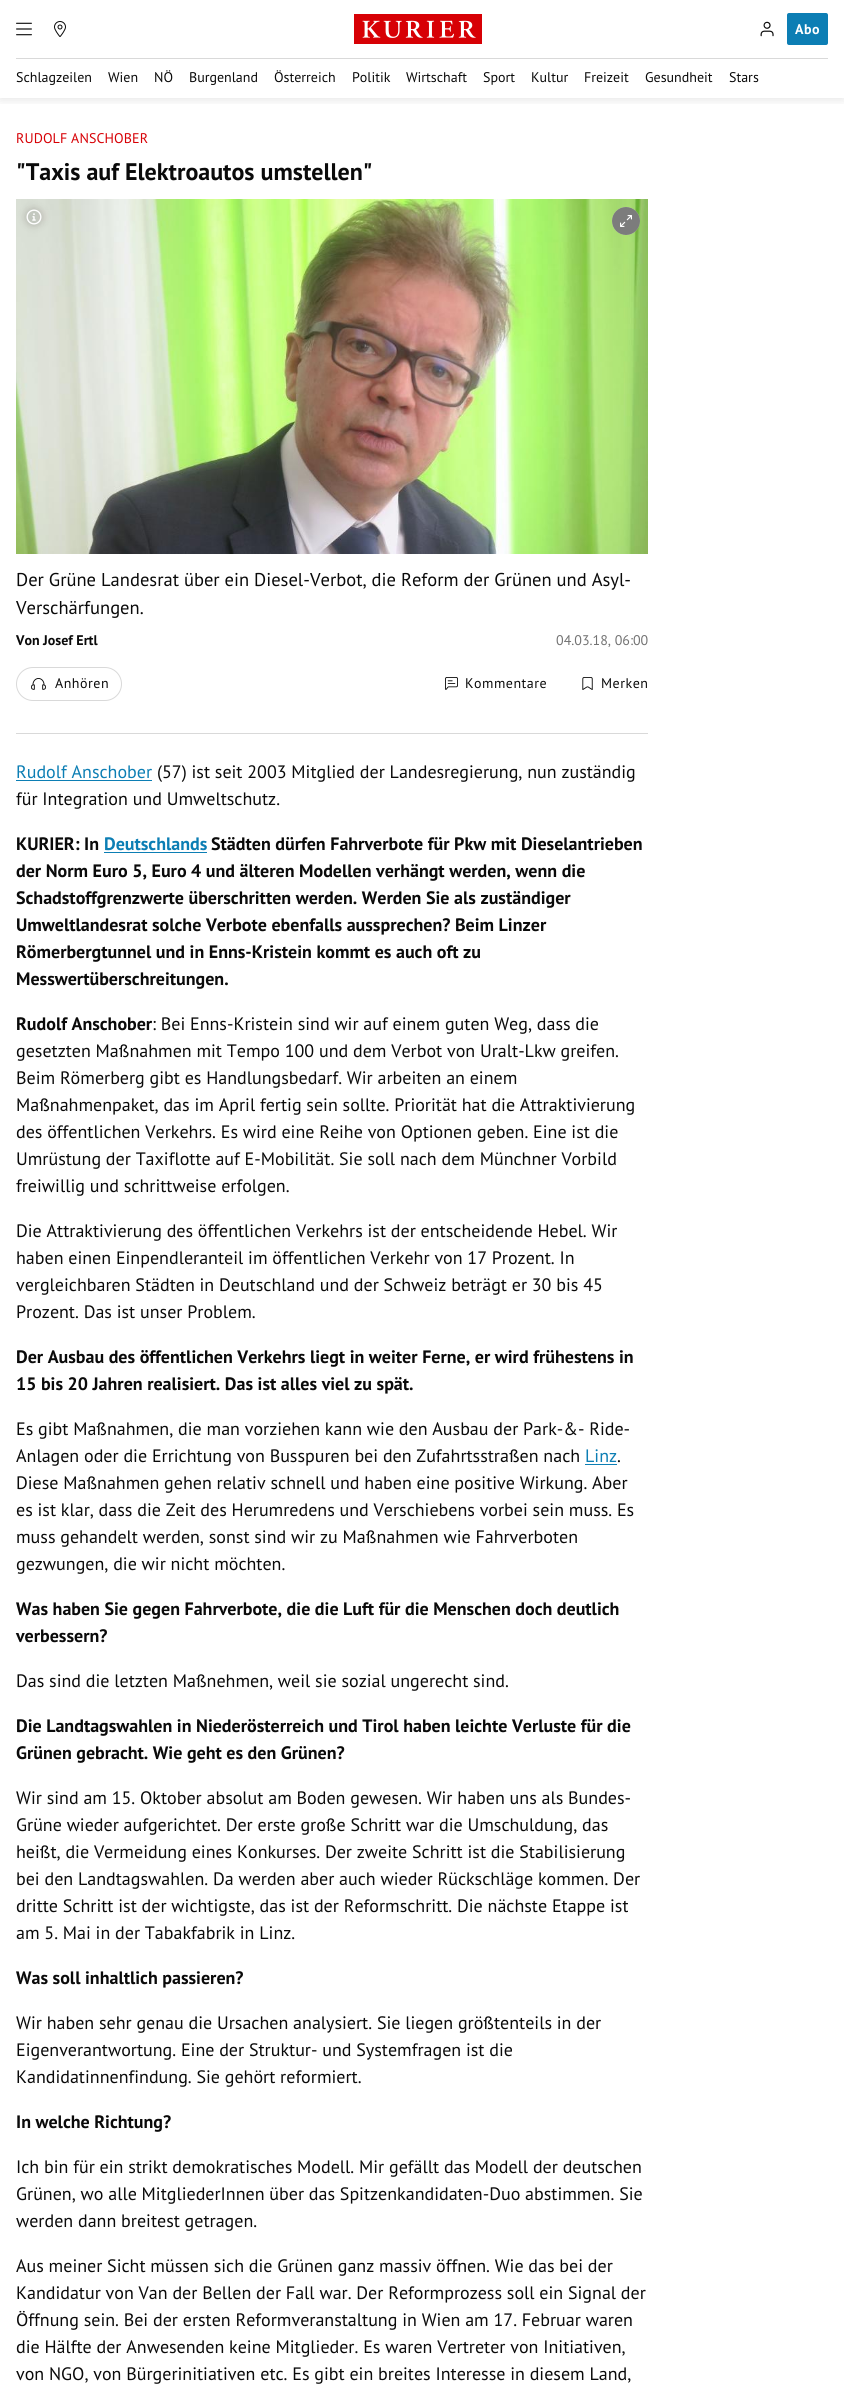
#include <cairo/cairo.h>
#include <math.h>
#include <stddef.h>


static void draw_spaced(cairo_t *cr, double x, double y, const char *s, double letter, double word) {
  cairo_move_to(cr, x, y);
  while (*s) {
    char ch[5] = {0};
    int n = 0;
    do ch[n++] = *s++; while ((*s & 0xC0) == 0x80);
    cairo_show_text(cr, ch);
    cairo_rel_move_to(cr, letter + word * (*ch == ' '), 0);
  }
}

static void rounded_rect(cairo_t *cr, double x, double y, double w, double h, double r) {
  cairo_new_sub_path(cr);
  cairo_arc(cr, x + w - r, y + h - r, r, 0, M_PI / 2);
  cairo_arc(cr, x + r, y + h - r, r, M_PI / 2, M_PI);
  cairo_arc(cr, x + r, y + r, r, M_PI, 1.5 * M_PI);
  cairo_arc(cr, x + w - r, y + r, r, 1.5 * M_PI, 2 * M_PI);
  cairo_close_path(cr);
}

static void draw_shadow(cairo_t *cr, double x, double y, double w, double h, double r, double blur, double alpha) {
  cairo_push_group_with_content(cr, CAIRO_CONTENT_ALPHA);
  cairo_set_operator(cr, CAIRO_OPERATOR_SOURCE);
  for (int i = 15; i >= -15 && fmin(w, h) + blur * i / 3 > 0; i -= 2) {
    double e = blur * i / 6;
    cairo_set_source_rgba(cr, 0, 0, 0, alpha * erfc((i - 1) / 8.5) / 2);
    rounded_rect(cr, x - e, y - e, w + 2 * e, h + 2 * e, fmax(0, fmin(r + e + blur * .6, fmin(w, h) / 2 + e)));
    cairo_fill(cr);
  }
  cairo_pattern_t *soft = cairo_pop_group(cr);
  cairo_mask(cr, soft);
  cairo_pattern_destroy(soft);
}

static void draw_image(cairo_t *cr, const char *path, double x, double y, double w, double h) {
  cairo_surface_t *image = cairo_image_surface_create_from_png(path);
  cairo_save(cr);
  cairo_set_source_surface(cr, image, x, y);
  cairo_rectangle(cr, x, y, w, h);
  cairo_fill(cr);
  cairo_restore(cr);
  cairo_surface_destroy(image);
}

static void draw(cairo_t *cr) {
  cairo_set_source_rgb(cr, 1, 1, 1);
  cairo_paint(cr);
  cairo_save(cr);
  cairo_rectangle(cr, 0, 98, 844, 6);
  cairo_clip(cr);
  cairo_set_source_rgb(cr, 0, 0, 0);
  draw_shadow(cr, 0, 60, 844, 40, 0, 5, 0.1);
  cairo_restore(cr);
  cairo_set_source_rgb(cr, 1, 1, 1);
  cairo_rectangle(cr, 0, 54, 844, 4);
  cairo_fill(cr);
  draw_image(cr, "images/1.png", 16, 22, 16, 14);
  draw_image(cr, "images/2.png", 54, 21, 12, 16);
  draw_image(cr, "images/3.png", 354, 14, 128, 30);
  draw_image(cr, "images/4.png", 760, 21, 14, 16);
  cairo_set_source_rgb(cr, 12 / 255.0, 126 / 255.0, 180 / 255.0);
  rounded_rect(cr, 787, 13, 41, 32, 2);
  cairo_fill(cr);
  cairo_set_source_rgb(cr, 217 / 255.0, 217 / 255.0, 217 / 255.0);
  cairo_rectangle(cr, 16, 58, 812, 1);
  cairo_fill(cr);
  draw_image(cr, "images/6.png", 16, 199, 632, 355);
  cairo_save(cr);
  cairo_set_fill_rule(cr, CAIRO_FILL_RULE_EVEN_ODD);
  cairo_new_path(cr);
  cairo_move_to(cr, 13, 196);
  cairo_line_to(cr, 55, 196);
  cairo_line_to(cr, 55, 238);
  cairo_line_to(cr, 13, 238);
  cairo_close_path(cr);
  cairo_move_to(cr, 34, 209);
  cairo_curve_to(cr, 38.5, 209, 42, 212.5, 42, 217);
  cairo_curve_to(cr, 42, 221.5, 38.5, 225, 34, 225);
  cairo_curve_to(cr, 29.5, 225, 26, 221.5, 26, 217);
  cairo_curve_to(cr, 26, 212.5, 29.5, 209, 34, 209);
  cairo_close_path(cr);
  cairo_clip(cr);
  cairo_set_source_rgb(cr, 21 / 255.0, 0, 3 / 255.0);
  draw_shadow(cr, 26, 209, 16, 16, 8, 4, 0.2);
  cairo_restore(cr);
  cairo_set_source_rgba(cr, 0, 0, 0, 0.1);
  cairo_arc(cr, 34, 217, 8, 0, 2 * M_PI);
  cairo_fill(cr);
  draw_image(cr, "images/5.png", 26, 209, 16, 16);
  cairo_set_source_rgb(cr, 239 / 255.0, 239 / 255.0, 239 / 255.0);
  cairo_arc(cr, 626, 221, 14, 0, 2 * M_PI);
  cairo_fill(cr);
  cairo_set_source_rgba(cr, 10 / 255.0, 10 / 255.0, 10 / 255.0, 0.5);
  cairo_arc(cr, 626, 221, 14, 0, 2 * M_PI);
  cairo_fill(cr);
  draw_image(cr, "images/7.png", 620, 215, 12, 12);
  rounded_rect(cr, 16.5, 667.5, 105, 33, 16.5);
  cairo_set_source_rgb(cr, 217 / 255.0, 217 / 255.0, 217 / 255.0);
  cairo_set_line_width(cr, 1);
  cairo_stroke(cr);
  draw_image(cr, "images/8.png", 31, 678, 15, 12);
  draw_image(cr, "images/9.png", 445, 677, 13, 13);
  draw_image(cr, "images/10.png", 582, 677, 11, 13);
  cairo_rectangle(cr, 16, 733, 632, 1);
  cairo_fill(cr);
  cairo_set_source_rgb(cr, 12 / 255.0, 126 / 255.0, 180 / 255.0);
  cairo_rectangle(cr, 16, 780, 136, 1);
  cairo_fill(cr);
  cairo_rectangle(cr, 104, 852, 103, 1);
  cairo_fill(cr);
  cairo_rectangle(cr, 585, 1464, 32, 1);
  cairo_fill(cr);
  cairo_select_font_face(cr, "PT Sans", CAIRO_FONT_SLANT_NORMAL, CAIRO_FONT_WEIGHT_BOLD);
  cairo_set_font_size(cr, 14);
  cairo_set_source_rgb(cr, 1, 1, 1);
  draw_spaced(cr, 795, 34, "Abo", 0.5, 0);
  cairo_select_font_face(cr, "PT Sans", CAIRO_FONT_SLANT_NORMAL, CAIRO_FONT_WEIGHT_NORMAL);
  cairo_set_source_rgb(cr, 10 / 255.0, 10 / 255.0, 10 / 255.0);
  cairo_move_to(cr, 16, 82);
  cairo_show_text(cr, "Schlagzeilen");
  cairo_move_to(cr, 108, 82);
  cairo_show_text(cr, "Wien");
  cairo_move_to(cr, 154, 82);
  cairo_show_text(cr, "NÖ");
  cairo_move_to(cr, 189, 82);
  cairo_show_text(cr, "Burgenland");
  cairo_move_to(cr, 274, 82);
  cairo_show_text(cr, "Österreich");
  cairo_move_to(cr, 352, 82);
  cairo_show_text(cr, "Politik");
  cairo_move_to(cr, 406, 82);
  cairo_show_text(cr, "Wirtschaft");
  cairo_move_to(cr, 483, 82);
  cairo_show_text(cr, "Sport");
  cairo_move_to(cr, 531, 82);
  cairo_show_text(cr, "Kultur");
  cairo_move_to(cr, 584, 82);
  cairo_show_text(cr, "Freizeit");
  cairo_move_to(cr, 645, 82);
  cairo_show_text(cr, "Gesundheit");
  cairo_move_to(cr, 729, 82);
  cairo_show_text(cr, "Stars");
  cairo_set_source_rgb(cr, 215 / 255.0, 0, 5 / 255.0);
  draw_spaced(cr, 16, 143, "RUDOLF ANSCHOBER", 0.1, 0);
  cairo_select_font_face(cr, "PT Sans", CAIRO_FONT_SLANT_NORMAL, CAIRO_FONT_WEIGHT_BOLD);
  cairo_set_font_size(cr, 24);
  cairo_set_source_rgb(cr, 10 / 255.0, 10 / 255.0, 10 / 255.0);
  cairo_move_to(cr, 16, 180);
  cairo_show_text(cr, "\"Taxis auf Elektroautos umstellen\"");
  cairo_select_font_face(cr, "PT Sans", CAIRO_FONT_SLANT_NORMAL, CAIRO_FONT_WEIGHT_NORMAL);
  cairo_set_font_size(cr, 18.55);
  cairo_move_to(cr, 16, 586);
  cairo_show_text(cr, "Der Grüne Landesrat über ein Diesel-Verbot, die Reform der Grünen und Asyl-");
  cairo_move_to(cr, 16, 614);
  cairo_show_text(cr, "Verschärfungen.");
  cairo_select_font_face(cr, "PT Sans", CAIRO_FONT_SLANT_NORMAL, CAIRO_FONT_WEIGHT_BOLD);
  cairo_set_font_size(cr, 14);
  cairo_move_to(cr, 16, 645);
  cairo_show_text(cr, "Von Josef Ertl");
  cairo_select_font_face(cr, "PT Sans", CAIRO_FONT_SLANT_NORMAL, CAIRO_FONT_WEIGHT_NORMAL);
  cairo_set_source_rgb(cr, 115 / 255.0, 115 / 255.0, 115 / 255.0);
  cairo_move_to(cr, 556, 645);
  cairo_show_text(cr, "04.03.18, 06:00");
  cairo_set_source_rgb(cr, 10 / 255.0, 10 / 255.0, 10 / 255.0);
  draw_spaced(cr, 55, 688, "Anhören", 0.5, 0);
  draw_spaced(cr, 465, 688, "Kommentare", 0.5, 0);
  draw_spaced(cr, 601, 688, "Merken", 0.5, 0);
  cairo_set_font_size(cr, 18);
  cairo_set_source_rgb(cr, 12 / 255.0, 126 / 255.0, 180 / 255.0);
  cairo_move_to(cr, 16, 778);
  cairo_show_text(cr, "Rudolf Anschober");
  cairo_set_source_rgb(cr, 10 / 255.0, 10 / 255.0, 10 / 255.0);
  cairo_move_to(cr, 157, 778);
  cairo_show_text(cr, "(57) ist seit 2003 Mitglied der Landesregierung, nun zuständig");
  cairo_move_to(cr, 16, 805);
  cairo_show_text(cr, "für Integration und Umweltschutz.");
  cairo_select_font_face(cr, "PT Sans", CAIRO_FONT_SLANT_NORMAL, CAIRO_FONT_WEIGHT_BOLD);
  cairo_move_to(cr, 16, 850);
  cairo_show_text(cr, "KURIER: In");
  cairo_set_source_rgb(cr, 12 / 255.0, 126 / 255.0, 180 / 255.0);
  cairo_move_to(cr, 104, 850);
  cairo_show_text(cr, "Deutschlands");
  cairo_set_source_rgb(cr, 10 / 255.0, 10 / 255.0, 10 / 255.0);
  cairo_move_to(cr, 211, 850);
  cairo_show_text(cr, "Städten dürfen Fahrverbote für Pkw mit Dieselantrieben");
  cairo_move_to(cr, 16, 877);
  cairo_show_text(cr, "der Norm Euro 5, Euro 4 und älteren Modellen verhängt werden, wenn die");
  cairo_move_to(cr, 16, 904);
  cairo_show_text(cr, "Schadstoffgrenzwerte überschritten werden. Werden Sie als zuständiger");
  cairo_move_to(cr, 16, 931);
  cairo_show_text(cr, "Umweltlandesrat solche Verbote ebenfalls aussprechen? Beim Linzer");
  cairo_move_to(cr, 16, 958);
  cairo_show_text(cr, "Römerbergtunnel und in Enns-Kristein kommt es auch oft zu");
  cairo_move_to(cr, 16, 985);
  cairo_show_text(cr, "Messwertüberschreitungen.");
  cairo_move_to(cr, 16, 1030);
  cairo_show_text(cr, "Rudolf Anschober");
  cairo_select_font_face(cr, "PT Sans", CAIRO_FONT_SLANT_NORMAL, CAIRO_FONT_WEIGHT_NORMAL);
  cairo_move_to(cr, 152, 1030);
  cairo_show_text(cr, ": Bei Enns-Kristein sind wir auf einem guten Weg, dass die");
  cairo_move_to(cr, 16, 1057);
  cairo_show_text(cr, "gesetzten Maßnahmen mit Tempo 100 und dem Verbot von Uralt-Lkw greifen.");
  cairo_move_to(cr, 16, 1084);
  cairo_show_text(cr, "Beim Römerberg gibt es Handlungsbedarf. Wir arbeiten an einem");
  cairo_move_to(cr, 16, 1111);
  cairo_show_text(cr, "Maßnahmenpaket, das im April fertig sein sollte. Priorität hat die Attraktivierung");
  cairo_move_to(cr, 16, 1138);
  cairo_show_text(cr, "des öffentlichen Verkehrs. Es wird eine Reihe von Optionen geben. Eine ist die");
  cairo_move_to(cr, 16, 1165);
  cairo_show_text(cr, "Umrüstung der Taxiflotte auf E-Mobilität. Sie soll nach dem Münchner Vorbild");
  cairo_move_to(cr, 16, 1192);
  cairo_show_text(cr, "freiwillig und schrittweise erfolgen.");
  cairo_move_to(cr, 16, 1237);
  cairo_show_text(cr, "Die Attraktivierung des öffentlichen Verkehrs ist der entscheidende Hebel. Wir");
  cairo_move_to(cr, 16, 1264);
  cairo_show_text(cr, "haben einen Einpendleranteil im öffentlichen Verkehr von 17 Prozent. In");
  cairo_move_to(cr, 16, 1291);
  cairo_show_text(cr, "vergleichbaren Städten in Deutschland und der Schweiz beträgt er 30 bis 45");
  cairo_move_to(cr, 16, 1318);
  cairo_show_text(cr, "Prozent. Das ist unser Problem.");
  cairo_select_font_face(cr, "PT Sans", CAIRO_FONT_SLANT_NORMAL, CAIRO_FONT_WEIGHT_BOLD);
  cairo_move_to(cr, 16, 1363);
  cairo_show_text(cr, "Der Ausbau des öffentlichen Verkehrs liegt in weiter Ferne, er wird frühestens in");
  cairo_move_to(cr, 16, 1390);
  cairo_show_text(cr, "15 bis 20 Jahren realisiert. Das ist alles viel zu spät.");
  cairo_select_font_face(cr, "PT Sans", CAIRO_FONT_SLANT_NORMAL, CAIRO_FONT_WEIGHT_NORMAL);
  cairo_move_to(cr, 16, 1435);
  cairo_show_text(cr, "Es gibt Maßnahmen, die man vorziehen kann wie den Ausbau der Park-&- Ride-");
  cairo_move_to(cr, 16, 1462);
  cairo_show_text(cr, "Anlagen oder die Errichtung von Busspuren bei den Zufahrtsstraßen nach");
  cairo_set_source_rgb(cr, 12 / 255.0, 126 / 255.0, 180 / 255.0);
  cairo_move_to(cr, 585, 1462);
  cairo_show_text(cr, "Linz");
  cairo_set_source_rgb(cr, 10 / 255.0, 10 / 255.0, 10 / 255.0);
  cairo_move_to(cr, 617, 1462);
  cairo_show_text(cr, ".");
  cairo_move_to(cr, 16, 1489);
  cairo_show_text(cr, "Diese Maßnahmen gehen relativ schnell und haben eine positive Wirkung. Aber");
  cairo_move_to(cr, 16, 1516);
  cairo_show_text(cr, "es ist klar, dass die Zeit des Herumredens und Verschiebens vorbei sein muss. Es");
  cairo_move_to(cr, 16, 1543);
  cairo_show_text(cr, "muss gehandelt werden, sonst sind wir zu Maßnahmen wie Fahrverboten");
  cairo_move_to(cr, 16, 1570);
  cairo_show_text(cr, "gezwungen, die wir nicht möchten.");
  cairo_select_font_face(cr, "PT Sans", CAIRO_FONT_SLANT_NORMAL, CAIRO_FONT_WEIGHT_BOLD);
  cairo_move_to(cr, 16, 1615);
  cairo_show_text(cr, "Was haben Sie gegen Fahrverbote, die die Luft für die Menschen doch deutlich");
  cairo_move_to(cr, 16, 1642);
  cairo_show_text(cr, "verbessern?");
  cairo_select_font_face(cr, "PT Sans", CAIRO_FONT_SLANT_NORMAL, CAIRO_FONT_WEIGHT_NORMAL);
  cairo_move_to(cr, 16, 1687);
  cairo_show_text(cr, "Das sind die letzten Maßnehmen, weil sie sozial ungerecht sind.");
  cairo_select_font_face(cr, "PT Sans", CAIRO_FONT_SLANT_NORMAL, CAIRO_FONT_WEIGHT_BOLD);
  cairo_move_to(cr, 16, 1732);
  cairo_show_text(cr, "Die Landtagswahlen in Niederösterreich und Tirol haben leichte Verluste für die");
  cairo_move_to(cr, 16, 1759);
  cairo_show_text(cr, "Grünen gebracht. Wie geht es den Grünen?");
  cairo_select_font_face(cr, "PT Sans", CAIRO_FONT_SLANT_NORMAL, CAIRO_FONT_WEIGHT_NORMAL);
  cairo_move_to(cr, 16, 1804);
  cairo_show_text(cr, "Wir sind am 15. Oktober absolut am Boden gewesen. Wir haben uns als Bundes-");
  cairo_move_to(cr, 16, 1831);
  cairo_show_text(cr, "Grüne wieder aufgerichtet. Der erste große Schritt war die Umschuldung, das");
  cairo_move_to(cr, 16, 1858);
  cairo_show_text(cr, "heißt, die Vermeidung eines Konkurses. Der zweite Schritt ist die Stabilisierung");
  cairo_move_to(cr, 16, 1885);
  cairo_show_text(cr, "bei den Landtagswahlen. Da werden aber auch wieder Rückschläge kommen. Der");
  cairo_move_to(cr, 16, 1912);
  cairo_show_text(cr, "dritte Schritt ist der wichtigste, das ist der Reformschritt. Die nächste Etappe ist");
  cairo_move_to(cr, 16, 1939);
  cairo_show_text(cr, "am 5. Mai in der Tabakfabrik in Linz.");
  cairo_select_font_face(cr, "PT Sans", CAIRO_FONT_SLANT_NORMAL, CAIRO_FONT_WEIGHT_BOLD);
  cairo_move_to(cr, 16, 1984);
  cairo_show_text(cr, "Was soll inhaltlich passieren?");
  cairo_select_font_face(cr, "PT Sans", CAIRO_FONT_SLANT_NORMAL, CAIRO_FONT_WEIGHT_NORMAL);
  cairo_move_to(cr, 16, 2029);
  cairo_show_text(cr, "Wir haben sehr genau die Ursachen analysiert. Sie liegen größtenteils in der");
  cairo_move_to(cr, 16, 2056);
  cairo_show_text(cr, "Eigenverantwortung. Eine der Struktur- und Systemfragen ist die");
  cairo_move_to(cr, 16, 2083);
  cairo_show_text(cr, "Kandidatinnenfindung. Sie gehört reformiert.");
  cairo_select_font_face(cr, "PT Sans", CAIRO_FONT_SLANT_NORMAL, CAIRO_FONT_WEIGHT_BOLD);
  cairo_move_to(cr, 16, 2128);
  cairo_show_text(cr, "In welche Richtung?");
  cairo_select_font_face(cr, "PT Sans", CAIRO_FONT_SLANT_NORMAL, CAIRO_FONT_WEIGHT_NORMAL);
  cairo_move_to(cr, 16, 2173);
  cairo_show_text(cr, "Ich bin für ein strikt demokratisches Modell. Mir gefällt das Modell der deutschen");
  cairo_move_to(cr, 16, 2200);
  cairo_show_text(cr, "Grünen, wo alle MitgliederInnen über das Spitzenkandidaten-Duo abstimmen. Sie");
  cairo_move_to(cr, 16, 2227);
  cairo_show_text(cr, "werden dann breitest getragen.");
  cairo_move_to(cr, 16, 2272);
  cairo_show_text(cr, "Aus meiner Sicht müssen sich die Grünen ganz massiv öffnen. Wie das bei der");
  cairo_move_to(cr, 16, 2299);
  cairo_show_text(cr, "Kandidatur von Van der Bellen der Fall war. Der Reformprozess soll ein Signal der");
  cairo_move_to(cr, 16, 2326);
  cairo_show_text(cr, "Öffnung sein. Bei der ersten Reformveranstaltung in Wien am 17. Februar waren");
  cairo_move_to(cr, 16, 2353);
  cairo_show_text(cr, "die Hälfte der Anwesenden keine Mitglieder. Es waren Vertreter von Initiativen,");
  cairo_move_to(cr, 16, 2380);
  cairo_show_text(cr, "von NGO, von Bürgerinitiativen etc. Es gibt ein breites Interesse in diesem Land,");
}

int main(void) {
  cairo_surface_t *surface = cairo_image_surface_create(CAIRO_FORMAT_RGB24, 844, 2392);
  cairo_t *cr = cairo_create(surface);
  cairo_font_options_t *options = cairo_font_options_create();
  cairo_font_options_set_hint_metrics(options, CAIRO_HINT_METRICS_OFF);
  cairo_font_options_set_hint_style(options, CAIRO_HINT_STYLE_NONE);
  cairo_set_font_options(cr, options);
  cairo_set_miter_limit(cr, 4);
  draw(cr);
  cairo_surface_write_to_png(surface, "out.png");
  cairo_font_options_destroy(options);
  cairo_destroy(cr);
  cairo_surface_destroy(surface);
  return 0;
}
